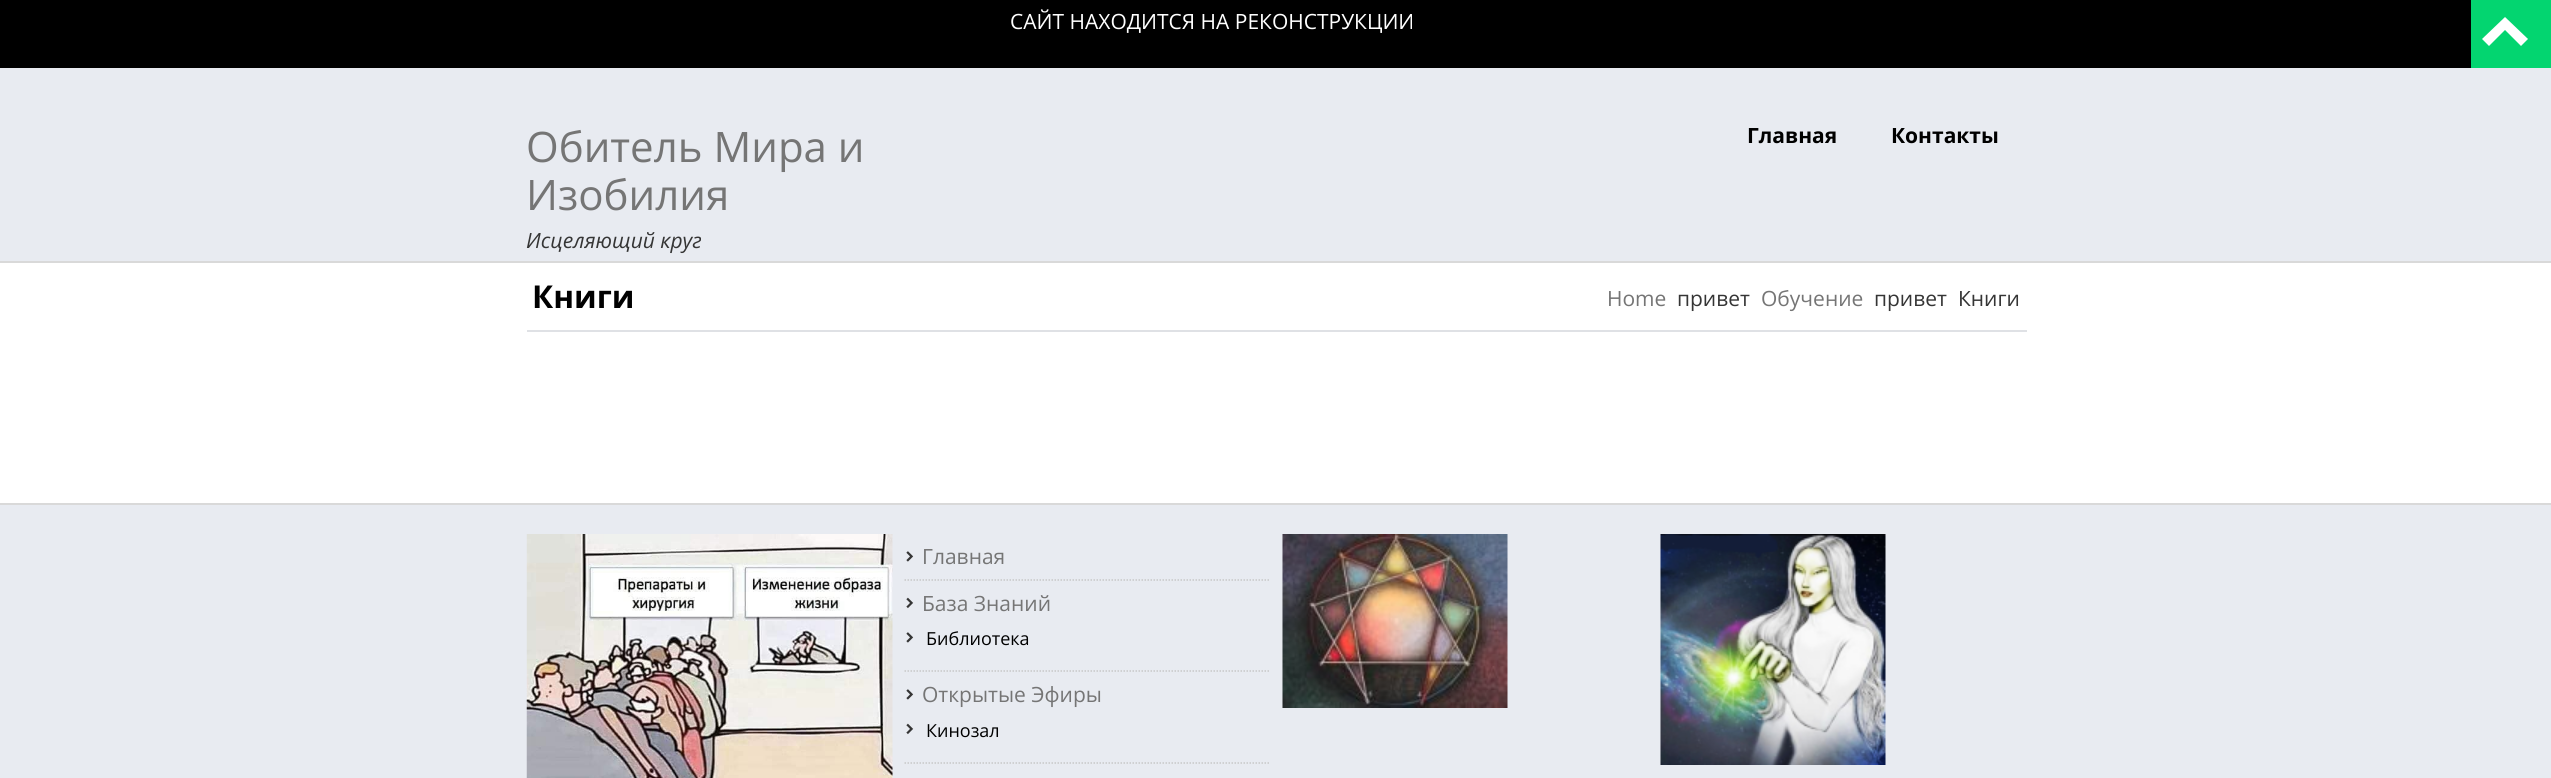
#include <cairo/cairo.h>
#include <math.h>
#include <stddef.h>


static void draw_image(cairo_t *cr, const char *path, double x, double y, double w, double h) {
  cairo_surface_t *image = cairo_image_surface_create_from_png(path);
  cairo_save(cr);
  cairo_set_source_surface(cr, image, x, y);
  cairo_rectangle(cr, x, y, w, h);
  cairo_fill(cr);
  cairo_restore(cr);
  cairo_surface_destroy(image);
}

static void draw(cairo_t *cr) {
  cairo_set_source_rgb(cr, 1, 1, 1);
  cairo_paint(cr);
  cairo_set_source_rgb(cr, 0, 0, 0);
  cairo_rectangle(cr, 0, 0, 2471, 68);
  cairo_fill(cr);
  cairo_set_source_rgb(cr, 3 / 255.0, 213 / 255.0, 112 / 255.0);
  cairo_rectangle(cr, 2471, 0, 80, 68);
  cairo_fill(cr);
  cairo_set_source_rgb(cr, 1, 1, 1);
  cairo_new_path(cr);
  cairo_move_to(cr, 2505, 17);
  cairo_line_to(cr, 2528, 39);
  cairo_line_to(cr, 2521, 46);
  cairo_line_to(cr, 2505, 30);
  cairo_line_to(cr, 2489, 46);
  cairo_line_to(cr, 2482, 39);
  cairo_close_path(cr);
  cairo_fill(cr);
  cairo_set_source_rgb(cr, 232 / 255.0, 235 / 255.0, 241 / 255.0);
  cairo_rectangle(cr, 0, 68, 2551, 193);
  cairo_fill(cr);
  cairo_set_source_rgb(cr, 217 / 255.0, 217 / 255.0, 217 / 255.0);
  cairo_rectangle(cr, 0, 261, 2551, 2);
  cairo_fill(cr);
  cairo_set_source_rgb(cr, 223 / 255.0, 225 / 255.0, 229 / 255.0);
  cairo_rectangle(cr, 527, 330, 1500, 2);
  cairo_fill(cr);
  cairo_set_source_rgb(cr, 232 / 255.0, 235 / 255.0, 241 / 255.0);
  cairo_rectangle(cr, 0, 505, 2551, 273);
  cairo_fill(cr);
  cairo_set_source_rgb(cr, 217 / 255.0, 217 / 255.0, 217 / 255.0);
  cairo_rectangle(cr, 0, 503, 2551, 2);
  cairo_fill(cr);
  draw_image(cr, "images/1.png", 526, 534, 367, 244);
  cairo_new_path(cr);
  cairo_move_to(cr, 904.5, 580);
  cairo_line_to(cr, 1270.5, 580);
  cairo_set_source_rgb(cr, 199 / 255.0, 199 / 255.0, 199 / 255.0);
  cairo_set_line_width(cr, 1.5);
  cairo_set_dash(cr, (double[]){1.5, 1.5}, 2, 0);
  cairo_stroke(cr);
  draw_image(cr, "images/2.png", 906, 551, 8, 11);
  cairo_new_path(cr);
  cairo_move_to(cr, 904.5, 671);
  cairo_line_to(cr, 1270.5, 671);
  cairo_stroke(cr);
  draw_image(cr, "images/3.png", 906, 597, 8, 12);
  draw_image(cr, "images/2.png", 906, 632, 8, 11);
  cairo_new_path(cr);
  cairo_move_to(cr, 904.5, 763);
  cairo_line_to(cr, 1270.5, 763);
  cairo_stroke(cr);
  draw_image(cr, "images/2.png", 906, 689, 8, 11);
  draw_image(cr, "images/3.png", 906, 723, 8, 12);
  draw_image(cr, "images/4.png", 1282, 534, 226, 174);
  draw_image(cr, "images/5.png", 1660, 534, 226, 231);
  cairo_select_font_face(cr, "Open Sans", CAIRO_FONT_SLANT_NORMAL, CAIRO_FONT_WEIGHT_NORMAL);
  cairo_set_font_size(cr, 21);
  cairo_set_source_rgb(cr, 1, 1, 1);
  cairo_move_to(cr, 1010, 29);
  cairo_show_text(cr, "САЙТ НАХОДИТСЯ НА РЕКОНСТРУКЦИИ");
  cairo_set_font_size(cr, 42);
  cairo_set_source_rgb(cr, 117 / 255.0, 117 / 255.0, 117 / 255.0);
  cairo_move_to(cr, 526, 162);
  cairo_show_text(cr, "Обитель Мира и");
  cairo_move_to(cr, 526, 210);
  cairo_show_text(cr, "Изобилия");
  cairo_select_font_face(cr, "Open Sans", CAIRO_FONT_SLANT_ITALIC, CAIRO_FONT_WEIGHT_NORMAL);
  cairo_set_font_size(cr, 21);
  cairo_set_source_rgb(cr, 53 / 255.0, 53 / 255.0, 53 / 255.0);
  cairo_move_to(cr, 526, 248);
  cairo_show_text(cr, "Исцеляющий круг");
  cairo_select_font_face(cr, "Open Sans", CAIRO_FONT_SLANT_NORMAL, CAIRO_FONT_WEIGHT_BOLD);
  cairo_set_source_rgb(cr, 0, 0, 0);
  cairo_move_to(cr, 1747, 143);
  cairo_show_text(cr, "Главная");
  cairo_move_to(cr, 1891, 143);
  cairo_show_text(cr, "Контакты");
  cairo_set_font_size(cr, 31.5);
  cairo_move_to(cr, 532, 308);
  cairo_show_text(cr, "Книги");
  cairo_select_font_face(cr, "Open Sans", CAIRO_FONT_SLANT_NORMAL, CAIRO_FONT_WEIGHT_NORMAL);
  cairo_set_font_size(cr, 21);
  cairo_set_source_rgb(cr, 117 / 255.0, 117 / 255.0, 117 / 255.0);
  cairo_move_to(cr, 1607, 306);
  cairo_show_text(cr, "Home");
  cairo_set_source_rgb(cr, 53 / 255.0, 53 / 255.0, 53 / 255.0);
  cairo_move_to(cr, 1677, 306);
  cairo_show_text(cr, "привет");
  cairo_set_source_rgb(cr, 117 / 255.0, 117 / 255.0, 117 / 255.0);
  cairo_move_to(cr, 1761, 306);
  cairo_show_text(cr, "Обучение");
  cairo_set_source_rgb(cr, 53 / 255.0, 53 / 255.0, 53 / 255.0);
  cairo_move_to(cr, 1874, 306);
  cairo_show_text(cr, "привет");
  cairo_move_to(cr, 1958, 306);
  cairo_show_text(cr, "Книги");
  cairo_set_source_rgb(cr, 117 / 255.0, 117 / 255.0, 117 / 255.0);
  cairo_move_to(cr, 922, 564);
  cairo_show_text(cr, "Главная");
  cairo_move_to(cr, 922, 611);
  cairo_show_text(cr, "База Знаний");
  cairo_set_font_size(cr, 18);
  cairo_set_source_rgb(cr, 0, 0, 0);
  cairo_move_to(cr, 926, 645);
  cairo_show_text(cr, "Библиотека");
  cairo_set_font_size(cr, 21);
  cairo_set_source_rgb(cr, 117 / 255.0, 117 / 255.0, 117 / 255.0);
  cairo_move_to(cr, 922, 702);
  cairo_show_text(cr, "Открытые Эфиры");
  cairo_set_font_size(cr, 18);
  cairo_set_source_rgb(cr, 0, 0, 0);
  cairo_move_to(cr, 926, 737);
  cairo_show_text(cr, "Кинозал");
}

int main(void) {
  cairo_surface_t *surface = cairo_image_surface_create(CAIRO_FORMAT_RGB24, 2551, 778);
  cairo_t *cr = cairo_create(surface);
  cairo_font_options_t *options = cairo_font_options_create();
  cairo_font_options_set_hint_metrics(options, CAIRO_HINT_METRICS_OFF);
  cairo_font_options_set_hint_style(options, CAIRO_HINT_STYLE_NONE);
  cairo_set_font_options(cr, options);
  cairo_set_miter_limit(cr, 4);
  draw(cr);
  cairo_surface_write_to_png(surface, "out.png");
  cairo_font_options_destroy(options);
  cairo_destroy(cr);
  cairo_surface_destroy(surface);
  return 0;
}
